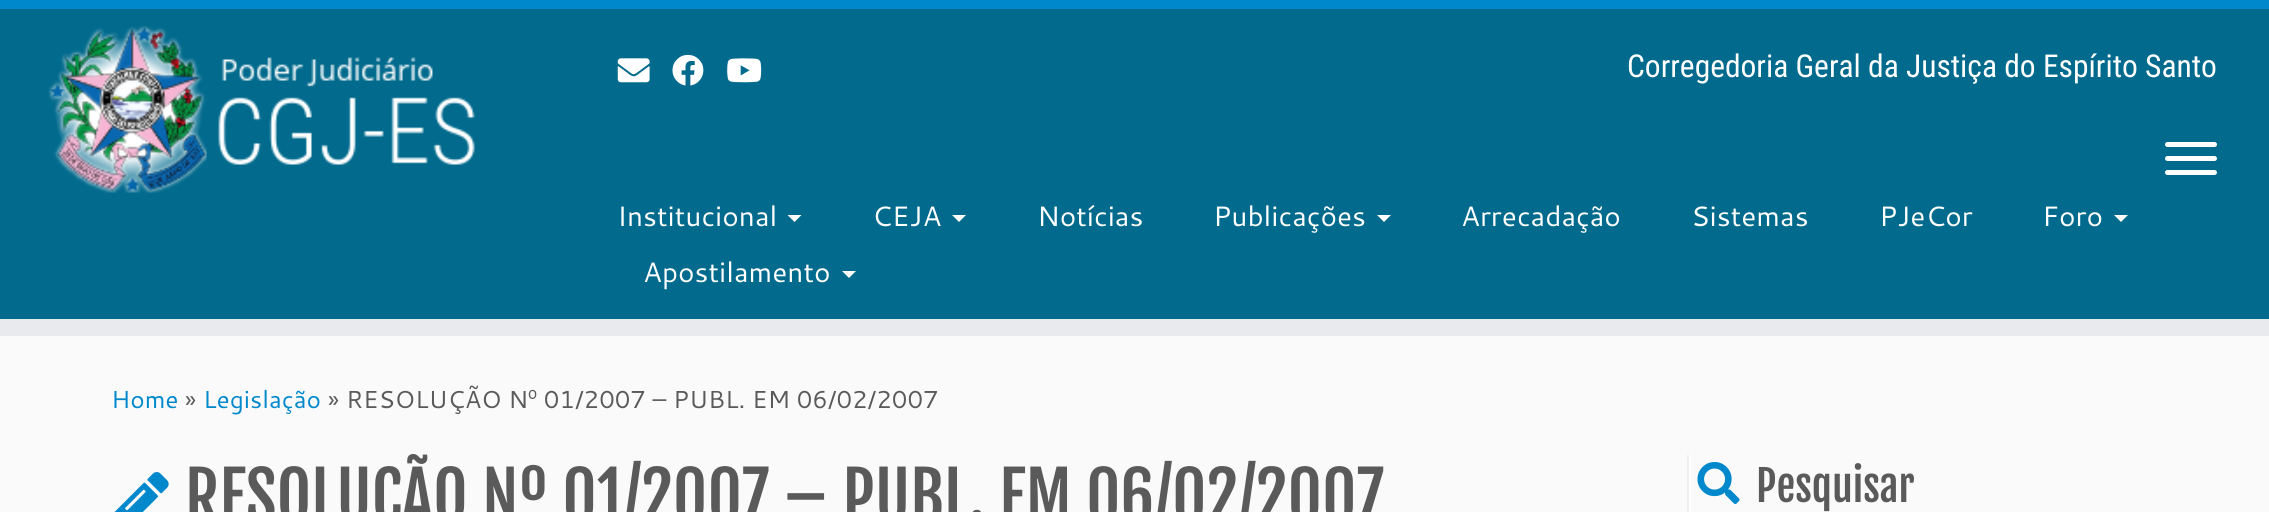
#include <cairo/cairo.h>
#include <math.h>
#include <stddef.h>


static void rounded_rect(cairo_t *cr, double x, double y, double w, double h, double r) {
  cairo_new_sub_path(cr);
  cairo_arc(cr, x + w - r, y + h - r, r, 0, M_PI / 2);
  cairo_arc(cr, x + r, y + h - r, r, M_PI / 2, M_PI);
  cairo_arc(cr, x + r, y + r, r, M_PI, 1.5 * M_PI);
  cairo_arc(cr, x + w - r, y + r, r, 1.5 * M_PI, 2 * M_PI);
  cairo_close_path(cr);
}

static void draw_image(cairo_t *cr, const char *path, double x, double y, double w, double h) {
  cairo_surface_t *image = cairo_image_surface_create_from_png(path);
  cairo_save(cr);
  cairo_set_source_surface(cr, image, x, y);
  cairo_rectangle(cr, x, y, w, h);
  cairo_fill(cr);
  cairo_restore(cr);
  cairo_surface_destroy(image);
}

static void draw(cairo_t *cr) {
  cairo_set_source_rgb(cr, 250 / 255.0, 250 / 255.0, 250 / 255.0);
  cairo_paint(cr);
  cairo_set_source_rgb(cr, 1 / 255.0, 106 / 255.0, 141 / 255.0);
  cairo_rectangle(cr, 0, 9, 2269, 310);
  cairo_fill(cr);
  cairo_set_source_rgb(cr, 0, 136 / 255.0, 204 / 255.0);
  cairo_rectangle(cr, 0, 0, 2269, 9);
  cairo_fill(cr);
  cairo_set_source_rgb(cr, 233 / 255.0, 234 / 255.0, 238 / 255.0);
  cairo_rectangle(cr, 0, 319, 2269, 17);
  cairo_fill(cr);
  draw_image(cr, "images/1.png", 48, 26, 427, 167);
  draw_image(cr, "images/2.png", 617, 58, 33, 25);
  draw_image(cr, "images/3.png", 672, 54, 32, 32);
  draw_image(cr, "images/4.png", 727, 58, 35, 25);
  cairo_set_source_rgb(cr, 1, 1, 1);
  rounded_rect(cr, 2165, 142, 52, 5, 2.5);
  cairo_fill(cr);
  rounded_rect(cr, 2165, 156, 52, 5, 2.5);
  cairo_fill(cr);
  rounded_rect(cr, 2165, 170, 52, 5, 2.5);
  cairo_fill(cr);
  cairo_new_path(cr);
  cairo_move_to(cr, 787.5, 215);
  cairo_line_to(cr, 801.5, 215);
  cairo_line_to(cr, 794.5, 222);
  cairo_close_path(cr);
  cairo_fill(cr);
  cairo_new_path(cr);
  cairo_move_to(cr, 952, 215);
  cairo_line_to(cr, 966, 215);
  cairo_line_to(cr, 959, 222);
  cairo_close_path(cr);
  cairo_fill(cr);
  cairo_new_path(cr);
  cairo_move_to(cr, 1377, 215);
  cairo_line_to(cr, 1391, 215);
  cairo_line_to(cr, 1384, 222);
  cairo_close_path(cr);
  cairo_fill(cr);
  cairo_new_path(cr);
  cairo_move_to(cr, 2114, 215);
  cairo_line_to(cr, 2128, 215);
  cairo_line_to(cr, 2121, 222);
  cairo_close_path(cr);
  cairo_fill(cr);
  cairo_new_path(cr);
  cairo_move_to(cr, 842, 271);
  cairo_line_to(cr, 856, 271);
  cairo_line_to(cr, 849, 278);
  cairo_close_path(cr);
  cairo_fill(cr);
  draw_image(cr, "images/5.png", 114, 472, 55, 40);
  cairo_set_source_rgb(cr, 238 / 255.0, 238 / 255.0, 238 / 255.0);
  cairo_rectangle(cr, 1687, 455, 2, 57);
  cairo_fill(cr);
  cairo_set_source_rgb(cr, 1, 1, 1);
  cairo_rectangle(cr, 1689, 455, 2, 57);
  cairo_fill(cr);
  draw_image(cr, "images/6.png", 1697, 462, 43, 42);
  cairo_select_font_face(cr, "Roboto Condensed", CAIRO_FONT_SLANT_NORMAL, CAIRO_FONT_WEIGHT_NORMAL);
  cairo_set_font_size(cr, 31.5);
  cairo_move_to(cr, 1627, 77);
  cairo_show_text(cr, "Corregedoria Geral da Justiça do Espírito Santo");
  cairo_select_font_face(cr, "Cantarell", CAIRO_FONT_SLANT_NORMAL, CAIRO_FONT_WEIGHT_NORMAL);
  cairo_set_font_size(cr, 28);
  cairo_move_to(cr, 617, 226);
  cairo_show_text(cr, "Institucional");
  cairo_move_to(cr, 872, 226);
  cairo_show_text(cr, "CEJA");
  cairo_move_to(cr, 1037, 226);
  cairo_show_text(cr, "Notícias");
  cairo_move_to(cr, 1213, 226);
  cairo_show_text(cr, "Publicações");
  cairo_move_to(cr, 1461, 226);
  cairo_show_text(cr, "Arrecadação");
  cairo_move_to(cr, 1691, 226);
  cairo_show_text(cr, "Sistemas");
  cairo_move_to(cr, 1879, 226);
  cairo_show_text(cr, "PJeCor");
  cairo_move_to(cr, 2042, 226);
  cairo_show_text(cr, "Foro");
  cairo_move_to(cr, 643, 282);
  cairo_show_text(cr, "Apostilamento");
  cairo_set_font_size(cr, 24.5);
  cairo_set_source_rgb(cr, 0, 136 / 255.0, 204 / 255.0);
  cairo_move_to(cr, 111, 408);
  cairo_show_text(cr, "Home");
  cairo_set_source_rgb(cr, 90 / 255.0, 90 / 255.0, 90 / 255.0);
  cairo_move_to(cr, 185, 408);
  cairo_show_text(cr, "»");
  cairo_set_source_rgb(cr, 0, 136 / 255.0, 204 / 255.0);
  cairo_move_to(cr, 203, 408);
  cairo_show_text(cr, "Legislação");
  cairo_set_source_rgb(cr, 90 / 255.0, 90 / 255.0, 90 / 255.0);
  cairo_move_to(cr, 328, 408);
  cairo_show_text(cr, "» RESOLUÇÃO Nº 01/2007 – PUBL. EM 06/02/2007");
  cairo_select_font_face(cr, "Fjalla One", CAIRO_FONT_SLANT_NORMAL, CAIRO_FONT_WEIGHT_NORMAL);
  cairo_set_font_size(cr, 66.5);
  cairo_move_to(cr, 185, 522);
  cairo_show_text(cr, "RESOLUÇÃO Nº 01/2007 – PUBL. EM 06/02/2007");
  cairo_set_font_size(cr, 42);
  cairo_move_to(cr, 1756, 502);
  cairo_show_text(cr, "Pesquisar");
}

int main(void) {
  cairo_surface_t *surface = cairo_image_surface_create(CAIRO_FORMAT_RGB24, 2269, 512);
  cairo_t *cr = cairo_create(surface);
  cairo_font_options_t *options = cairo_font_options_create();
  cairo_font_options_set_hint_metrics(options, CAIRO_HINT_METRICS_OFF);
  cairo_font_options_set_hint_style(options, CAIRO_HINT_STYLE_NONE);
  cairo_set_font_options(cr, options);
  cairo_set_miter_limit(cr, 4);
  draw(cr);
  cairo_surface_write_to_png(surface, "out.png");
  cairo_font_options_destroy(options);
  cairo_destroy(cr);
  cairo_surface_destroy(surface);
  return 0;
}
